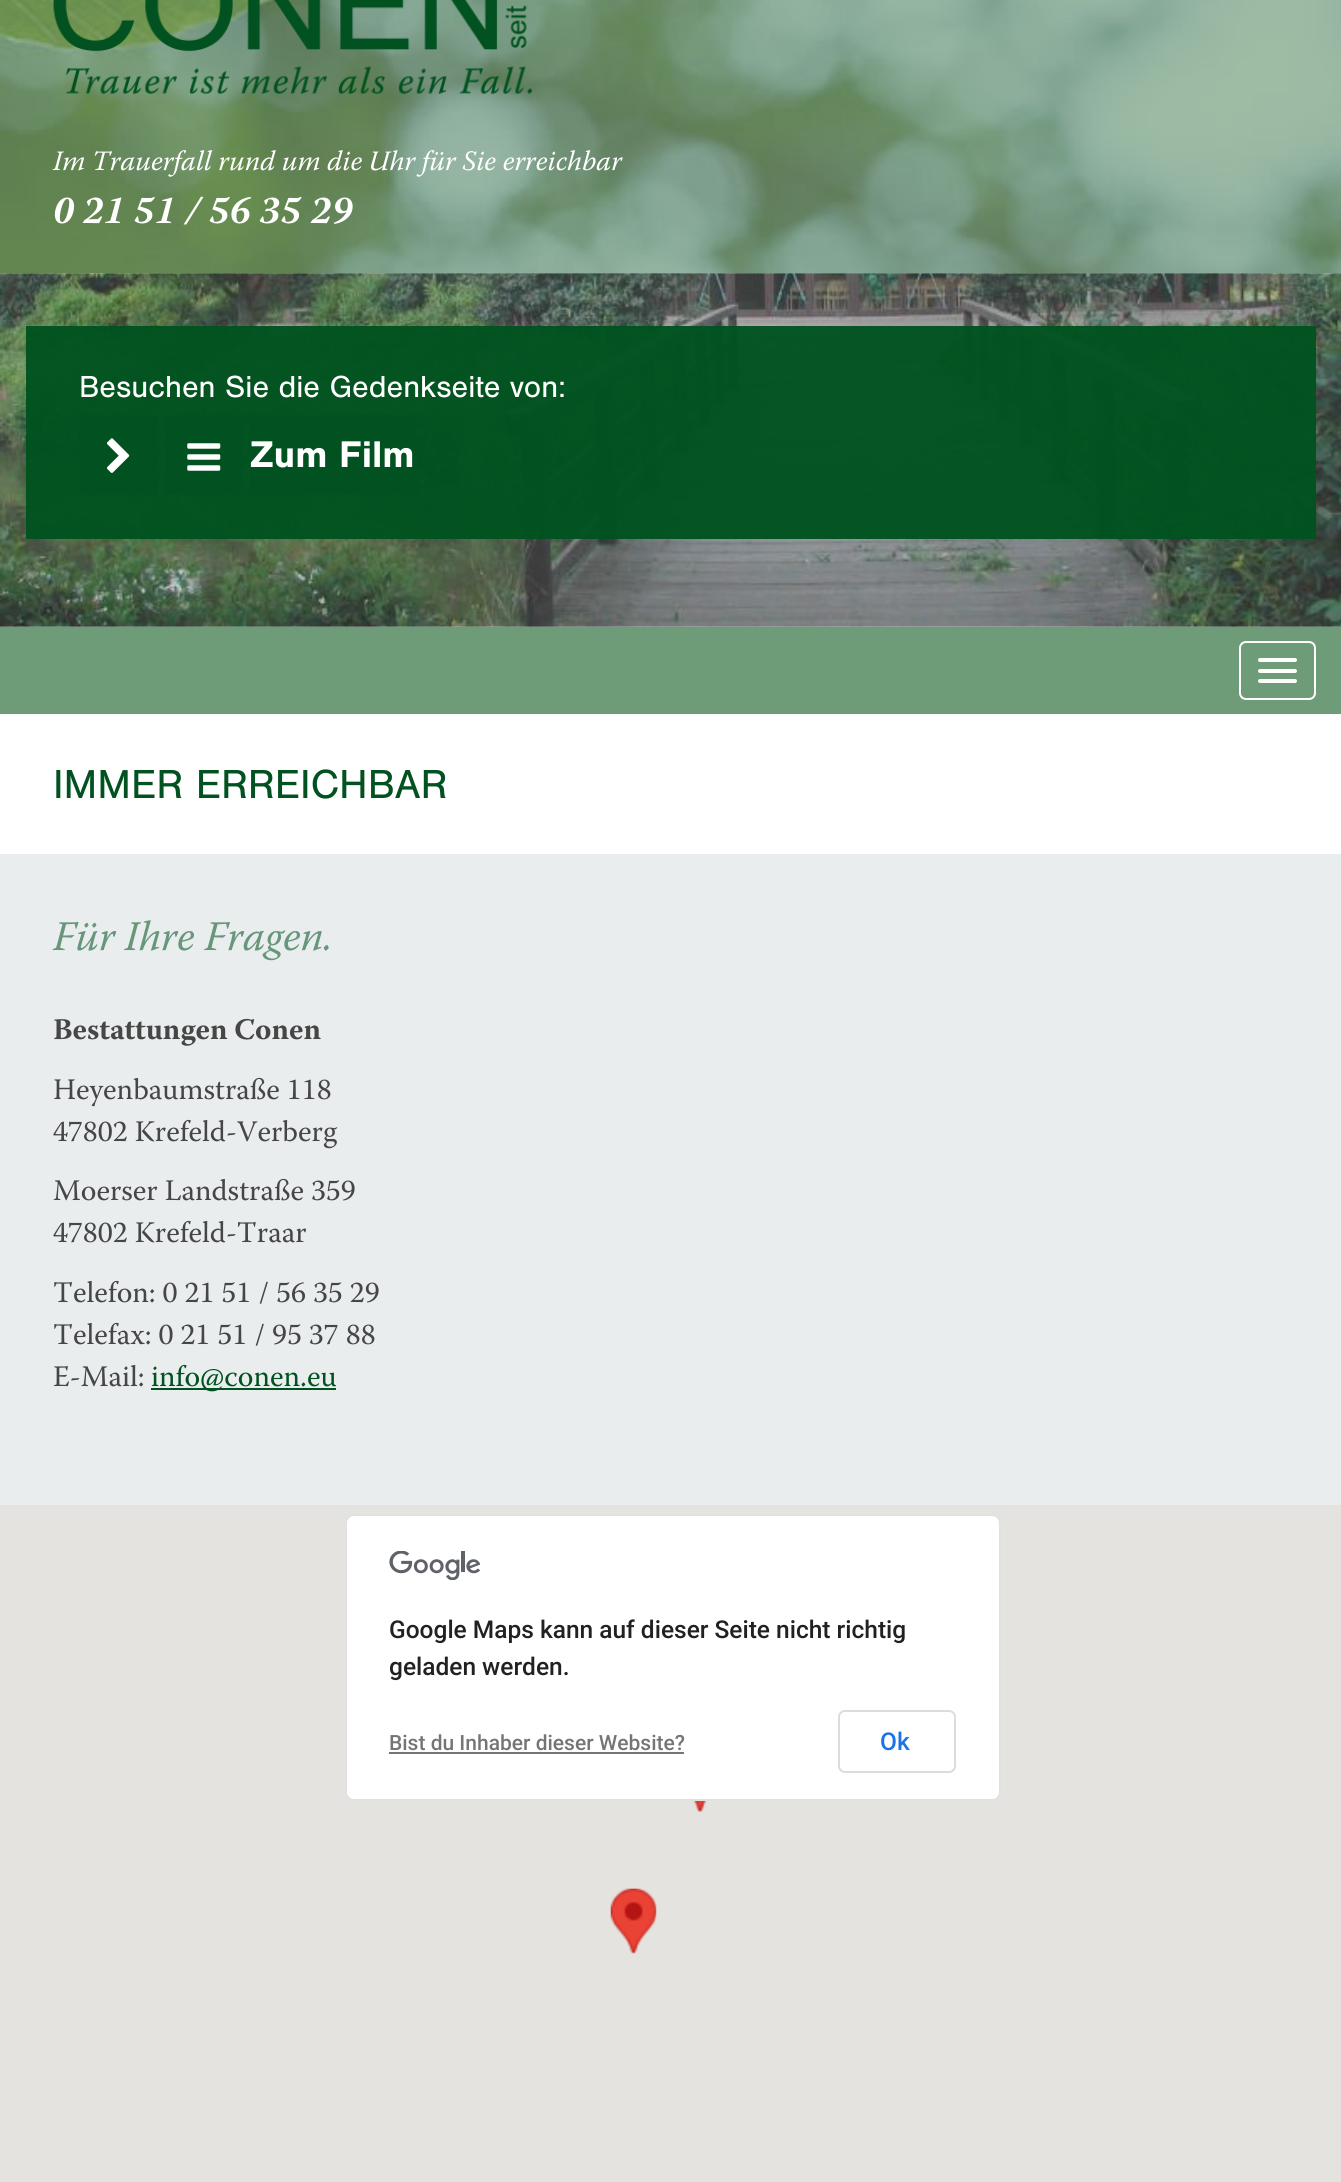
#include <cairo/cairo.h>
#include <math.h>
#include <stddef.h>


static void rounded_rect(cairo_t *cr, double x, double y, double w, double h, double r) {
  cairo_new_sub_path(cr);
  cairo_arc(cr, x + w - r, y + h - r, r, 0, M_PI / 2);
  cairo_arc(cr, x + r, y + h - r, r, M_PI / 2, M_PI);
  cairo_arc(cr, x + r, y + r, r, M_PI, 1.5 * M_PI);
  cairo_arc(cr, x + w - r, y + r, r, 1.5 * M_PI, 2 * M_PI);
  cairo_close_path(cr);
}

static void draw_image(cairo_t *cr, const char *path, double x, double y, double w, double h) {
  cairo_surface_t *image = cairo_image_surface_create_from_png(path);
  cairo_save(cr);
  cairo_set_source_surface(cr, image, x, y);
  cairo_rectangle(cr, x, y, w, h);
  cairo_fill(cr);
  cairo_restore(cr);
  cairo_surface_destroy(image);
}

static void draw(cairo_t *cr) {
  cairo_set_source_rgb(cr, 233 / 255.0, 237 / 255.0, 238 / 255.0);
  cairo_paint(cr);
  draw_image(cr, "images/1.png", 0, 0, 1341, 274);
  draw_image(cr, "images/2.png", 53, 0, 480, 94);
  draw_image(cr, "images/3.png", 0, 273, 1341, 354);
  cairo_set_source_rgba(cr, 1 / 255.0, 82 / 255.0, 32 / 255.0, 0.96);
  cairo_rectangle(cr, 26, 326, 1290, 213);
  cairo_fill(cr);
  cairo_set_source_rgb(cr, 1 / 255.0, 82 / 255.0, 32 / 255.0);
  cairo_rectangle(cr, 79, 415, 79, 79);
  cairo_fill(cr);
  draw_image(cr, "images/4.png", 106, 438, 24, 35);
  cairo_rectangle(cr, 165, 415, 78, 79);
  cairo_fill(cr);
  draw_image(cr, "images/5.png", 187, 443, 34, 28);
  cairo_rectangle(cr, 250, 415, 165, 79);
  cairo_fill(cr);
  cairo_set_source_rgb(cr, 111 / 255.0, 156 / 255.0, 120 / 255.0);
  cairo_rectangle(cr, 0, 627, 1341, 87);
  cairo_fill(cr);
  rounded_rect(cr, 1240, 642, 75, 57, 6);
  cairo_set_source_rgb(cr, 1, 1, 1);
  cairo_stroke(cr);
  rounded_rect(cr, 1258, 658, 39, 4, 2);
  cairo_fill(cr);
  rounded_rect(cr, 1258, 669, 39, 4, 2);
  cairo_fill(cr);
  rounded_rect(cr, 1258, 679, 39, 4, 2);
  cairo_fill(cr);
  cairo_rectangle(cr, 0, 714, 1341, 140);
  cairo_fill(cr);
  cairo_set_source_rgb(cr, 1 / 255.0, 82 / 255.0, 32 / 255.0);
  cairo_rectangle(cr, 151, 1388, 185, 2);
  cairo_fill(cr);
  cairo_set_source_rgb(cr, 229 / 255.0, 227 / 255.0, 223 / 255.0);
  cairo_rectangle(cr, 0, 1505, 1341, 677);
  cairo_fill(cr);
  draw_image(cr, "images/6.png", 693, 1801, 14, 11);
  draw_image(cr, "images/7.png", 610, 1888, 47, 66);
  cairo_set_source_rgb(cr, 1, 1, 1);
  rounded_rect(cr, 345, 1514, 656, 287, 9);
  cairo_fill(cr);
  rounded_rect(cr, 346, 1515, 654, 285, 8);
  cairo_set_source_rgba(cr, 0, 0, 0, 0.12);
  cairo_stroke(cr);
  draw_image(cr, "images/8.png", 389, 1551, 91, 29);
  cairo_set_source_rgb(cr, 117 / 255.0, 117 / 255.0, 117 / 255.0);
  cairo_rectangle(cr, 389, 1752, 295, 2);
  cairo_fill(cr);
  rounded_rect(cr, 839, 1711, 116, 61, 6);
  cairo_set_source_rgb(cr, 218 / 255.0, 220 / 255.0, 224 / 255.0);
  cairo_stroke(cr);
  cairo_select_font_face(cr, "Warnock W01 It", CAIRO_FONT_SLANT_NORMAL, CAIRO_FONT_WEIGHT_NORMAL);
  cairo_set_font_size(cr, 28);
  cairo_set_source_rgb(cr, 1, 1, 1);
  cairo_move_to(cr, 53, 170);
  cairo_show_text(cr, "Im Trauerfall rund um die Uhr für Sie erreichbar");
  cairo_select_font_face(cr, "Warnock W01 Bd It", CAIRO_FONT_SLANT_NORMAL, CAIRO_FONT_WEIGHT_BOLD);
  cairo_set_font_size(cr, 39);
  cairo_move_to(cr, 53, 223);
  cairo_show_text(cr, "0 21 51 / 56 35 29");
  cairo_select_font_face(cr, "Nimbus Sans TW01", CAIRO_FONT_SLANT_NORMAL, CAIRO_FONT_WEIGHT_NORMAL);
  cairo_set_font_size(cr, 31.5);
  cairo_move_to(cr, 79, 397);
  cairo_show_text(cr, "Besuchen Sie die Gedenkseite von:");
  cairo_select_font_face(cr, "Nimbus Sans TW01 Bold", CAIRO_FONT_SLANT_NORMAL, CAIRO_FONT_WEIGHT_BOLD);
  cairo_set_font_size(cr, 38.5);
  cairo_move_to(cr, 250, 467);
  cairo_show_text(cr, "Zum Film");
  cairo_select_font_face(cr, "Nimbus Sans TW01", CAIRO_FONT_SLANT_NORMAL, CAIRO_FONT_WEIGHT_NORMAL);
  cairo_set_font_size(cr, 42);
  cairo_set_source_rgb(cr, 1 / 255.0, 82 / 255.0, 32 / 255.0);
  cairo_move_to(cr, 53, 798);
  cairo_show_text(cr, "IMMER ERREICHBAR");
  cairo_select_font_face(cr, "Warnock W01 It", CAIRO_FONT_SLANT_NORMAL, CAIRO_FONT_WEIGHT_NORMAL);
  cairo_set_source_rgb(cr, 103 / 255.0, 150 / 255.0, 123 / 255.0);
  cairo_move_to(cr, 53, 950);
  cairo_show_text(cr, "Für Ihre Fragen.");
  cairo_select_font_face(cr, "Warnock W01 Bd", CAIRO_FONT_SLANT_NORMAL, CAIRO_FONT_WEIGHT_BOLD);
  cairo_set_font_size(cr, 29.75);
  cairo_set_source_rgb(cr, 70 / 255.0, 70 / 255.0, 70 / 255.0);
  cairo_move_to(cr, 53, 1039);
  cairo_show_text(cr, "Bestattungen Conen");
  cairo_select_font_face(cr, "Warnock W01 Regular", CAIRO_FONT_SLANT_NORMAL, CAIRO_FONT_WEIGHT_NORMAL);
  cairo_move_to(cr, 53, 1099);
  cairo_show_text(cr, "Heyenbaumstraße 118");
  cairo_move_to(cr, 53, 1141);
  cairo_show_text(cr, "47802 Krefeld-Verberg");
  cairo_move_to(cr, 53, 1200);
  cairo_show_text(cr, "Moerser Landstraße 359");
  cairo_move_to(cr, 53, 1242);
  cairo_show_text(cr, "47802 Krefeld-Traar");
  cairo_move_to(cr, 53, 1302);
  cairo_show_text(cr, "Telefon: 0 21 51 / 56 35 29");
  cairo_move_to(cr, 53, 1344);
  cairo_show_text(cr, "Telefax: 0 21 51 / 95 37 88");
  cairo_move_to(cr, 53, 1386);
  cairo_show_text(cr, "E-Mail:");
  cairo_set_source_rgb(cr, 1 / 255.0, 82 / 255.0, 32 / 255.0);
  cairo_move_to(cr, 151, 1386);
  cairo_show_text(cr, "info@conen.eu");
  cairo_select_font_face(cr, "Roboto Medium", CAIRO_FONT_SLANT_NORMAL, CAIRO_FONT_WEIGHT_NORMAL);
  cairo_set_font_size(cr, 24.5);
  cairo_set_source_rgb(cr, 33 / 255.0, 33 / 255.0, 33 / 255.0);
  cairo_move_to(cr, 389, 1638);
  cairo_show_text(cr, "Google Maps kann auf dieser Seite nicht richtig");
  cairo_move_to(cr, 389, 1675);
  cairo_show_text(cr, "geladen werden.");
  cairo_set_font_size(cr, 21);
  cairo_set_source_rgb(cr, 117 / 255.0, 117 / 255.0, 117 / 255.0);
  cairo_move_to(cr, 389, 1750);
  cairo_show_text(cr, "Bist du Inhaber dieser Website?");
  cairo_set_font_size(cr, 24.5);
  cairo_set_source_rgb(cr, 26 / 255.0, 115 / 255.0, 232 / 255.0);
  cairo_move_to(cr, 880, 1750);
  cairo_show_text(cr, "Ok");
}

int main(void) {
  cairo_surface_t *surface = cairo_image_surface_create(CAIRO_FORMAT_RGB24, 1341, 2182);
  cairo_t *cr = cairo_create(surface);
  cairo_font_options_t *options = cairo_font_options_create();
  cairo_font_options_set_hint_metrics(options, CAIRO_HINT_METRICS_OFF);
  cairo_font_options_set_hint_style(options, CAIRO_HINT_STYLE_NONE);
  cairo_set_font_options(cr, options);
  cairo_set_miter_limit(cr, 4);
  draw(cr);
  cairo_surface_write_to_png(surface, "out.png");
  cairo_font_options_destroy(options);
  cairo_destroy(cr);
  cairo_surface_destroy(surface);
  return 0;
}
